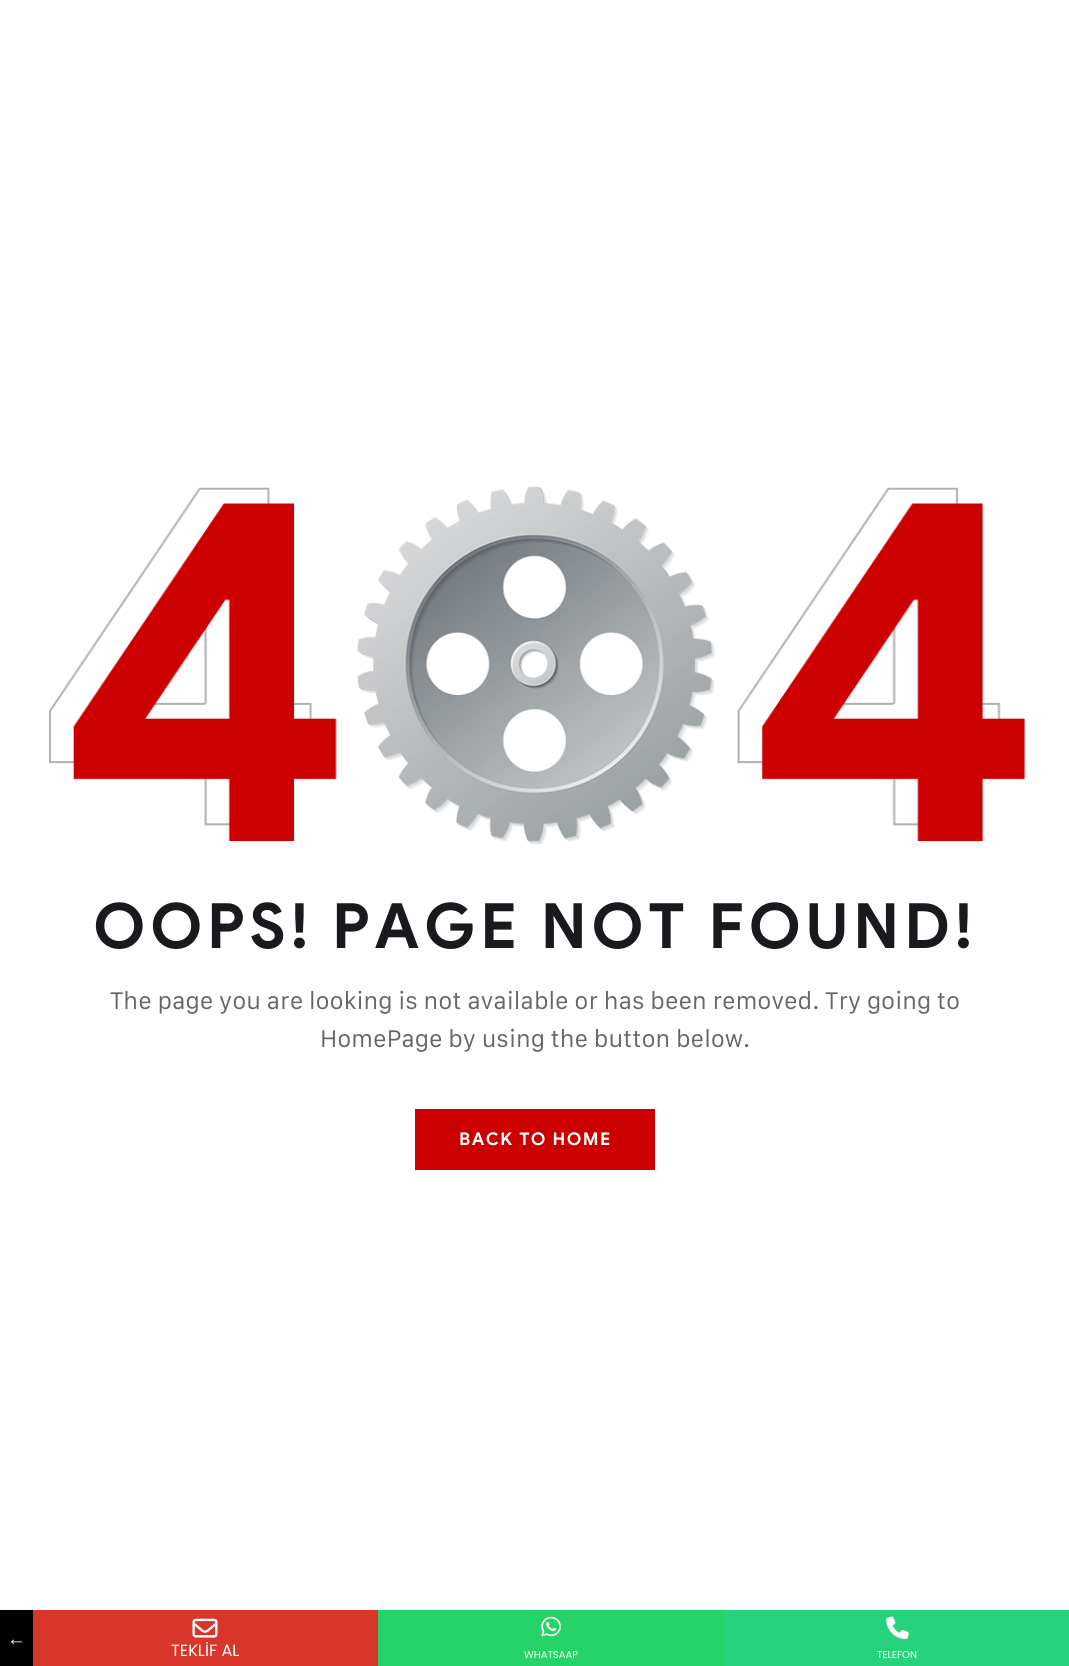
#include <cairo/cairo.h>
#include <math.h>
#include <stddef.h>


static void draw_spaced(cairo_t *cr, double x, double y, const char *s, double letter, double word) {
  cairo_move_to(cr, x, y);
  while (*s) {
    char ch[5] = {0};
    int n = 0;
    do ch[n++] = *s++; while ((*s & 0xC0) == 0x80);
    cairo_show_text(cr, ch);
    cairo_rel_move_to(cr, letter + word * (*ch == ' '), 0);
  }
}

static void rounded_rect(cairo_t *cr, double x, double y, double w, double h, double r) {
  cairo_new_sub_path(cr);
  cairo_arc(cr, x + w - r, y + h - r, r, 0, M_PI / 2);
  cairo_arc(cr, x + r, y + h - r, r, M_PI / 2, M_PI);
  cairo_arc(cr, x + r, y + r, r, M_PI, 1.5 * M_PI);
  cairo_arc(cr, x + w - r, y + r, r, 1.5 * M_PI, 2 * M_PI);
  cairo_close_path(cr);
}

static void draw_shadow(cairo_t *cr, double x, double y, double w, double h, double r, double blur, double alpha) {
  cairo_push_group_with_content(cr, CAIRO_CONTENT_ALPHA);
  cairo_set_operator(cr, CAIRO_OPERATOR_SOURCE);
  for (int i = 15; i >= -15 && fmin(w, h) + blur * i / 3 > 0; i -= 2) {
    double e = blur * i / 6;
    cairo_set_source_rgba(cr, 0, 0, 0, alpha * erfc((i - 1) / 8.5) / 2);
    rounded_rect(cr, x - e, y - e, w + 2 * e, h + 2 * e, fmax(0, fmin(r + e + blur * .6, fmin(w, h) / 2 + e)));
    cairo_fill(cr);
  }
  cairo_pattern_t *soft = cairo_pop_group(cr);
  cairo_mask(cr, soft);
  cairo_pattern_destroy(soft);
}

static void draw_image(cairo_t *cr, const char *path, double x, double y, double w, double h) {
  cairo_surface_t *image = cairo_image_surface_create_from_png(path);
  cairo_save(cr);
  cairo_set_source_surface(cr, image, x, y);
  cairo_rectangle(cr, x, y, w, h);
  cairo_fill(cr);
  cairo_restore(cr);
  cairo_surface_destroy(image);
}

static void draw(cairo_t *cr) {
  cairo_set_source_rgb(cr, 1, 1, 1);
  cairo_paint(cr);
  draw_image(cr, "images/1.png", 49, 486, 976, 359);
  cairo_set_source_rgb(cr, 205 / 255.0, 0, 1 / 255.0);
  cairo_rectangle(cr, 415, 1109, 240, 61);
  cairo_fill(cr);
  cairo_set_source_rgb(cr, 0, 0, 0);
  draw_shadow(cr, 0, 1614, 33, 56, 0, 4, 0.16);
  cairo_set_source_rgb(cr, 0, 0, 0);
  cairo_rectangle(cr, 0, 1610, 33, 56);
  cairo_fill(cr);
  cairo_set_source_rgb(cr, 216 / 255.0, 54 / 255.0, 43 / 255.0);
  cairo_rectangle(cr, 33, 1610, 345, 56);
  cairo_fill(cr);
  draw_image(cr, "images/2.png", 192, 1618, 26, 20);
  cairo_set_source_rgb(cr, 38 / 255.0, 211 / 255.0, 103 / 255.0);
  cairo_rectangle(cr, 378, 1610, 346, 56);
  cairo_fill(cr);
  draw_image(cr, "images/3.png", 541, 1616, 20, 21);
  cairo_set_source_rgb(cr, 38 / 255.0, 211 / 255.0, 124 / 255.0);
  cairo_rectangle(cr, 724, 1610, 345, 56);
  cairo_fill(cr);
  draw_image(cr, "images/4.png", 886, 1616, 23, 24);
  cairo_select_font_face(cr, "Google Sans", CAIRO_FONT_SLANT_NORMAL, CAIRO_FONT_WEIGHT_BOLD);
  cairo_set_font_size(cr, 62.5);
  cairo_set_source_rgb(cr, 26 / 255.0, 25 / 255.0, 29 / 255.0);
  draw_spaced(cr, 93, 948, "OOPS! PAGE NOT FOUND!", 4.4, 0);
  cairo_select_font_face(cr, "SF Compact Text", CAIRO_FONT_SLANT_NORMAL, CAIRO_FONT_WEIGHT_NORMAL);
  cairo_set_font_size(cr, 25);
  cairo_set_source_rgb(cr, 102 / 255.0, 102 / 255.0, 102 / 255.0);
  cairo_move_to(cr, 110, 1009);
  cairo_show_text(cr, "The page you are looking is not available or has been removed. Try going to");
  cairo_move_to(cr, 320, 1047);
  cairo_show_text(cr, "HomePage by using the button below.");
  cairo_select_font_face(cr, "Google Sans", CAIRO_FONT_SLANT_NORMAL, CAIRO_FONT_WEIGHT_BOLD);
  cairo_set_font_size(cr, 17.5);
  cairo_set_source_rgb(cr, 1, 1, 1);
  draw_spaced(cr, 459, 1145, "BACK TO HOME", 1.4, 0);
  cairo_select_font_face(cr, "Liberation Serif", CAIRO_FONT_SLANT_NORMAL, CAIRO_FONT_WEIGHT_NORMAL);
  cairo_set_font_size(cr, 19);
  cairo_move_to(cr, 7, 1645);
  cairo_show_text(cr, "←");
  cairo_select_font_face(cr, "Poppins", CAIRO_FONT_SLANT_NORMAL, CAIRO_FONT_WEIGHT_NORMAL);
  cairo_set_font_size(cr, 16.25);
  cairo_move_to(cr, 171, 1656);
  cairo_show_text(cr, "TEKLİF AL");
  cairo_set_font_size(cr, 10);
  cairo_move_to(cr, 524, 1658);
  cairo_show_text(cr, "WHATSAAP");
  cairo_move_to(cr, 877, 1658);
  cairo_show_text(cr, "TELEFON");
}

int main(void) {
  cairo_surface_t *surface = cairo_image_surface_create(CAIRO_FORMAT_RGB24, 1069, 1666);
  cairo_t *cr = cairo_create(surface);
  cairo_font_options_t *options = cairo_font_options_create();
  cairo_font_options_set_hint_metrics(options, CAIRO_HINT_METRICS_OFF);
  cairo_font_options_set_hint_style(options, CAIRO_HINT_STYLE_NONE);
  cairo_set_font_options(cr, options);
  cairo_set_miter_limit(cr, 4);
  draw(cr);
  cairo_surface_write_to_png(surface, "out.png");
  cairo_font_options_destroy(options);
  cairo_destroy(cr);
  cairo_surface_destroy(surface);
  return 0;
}
